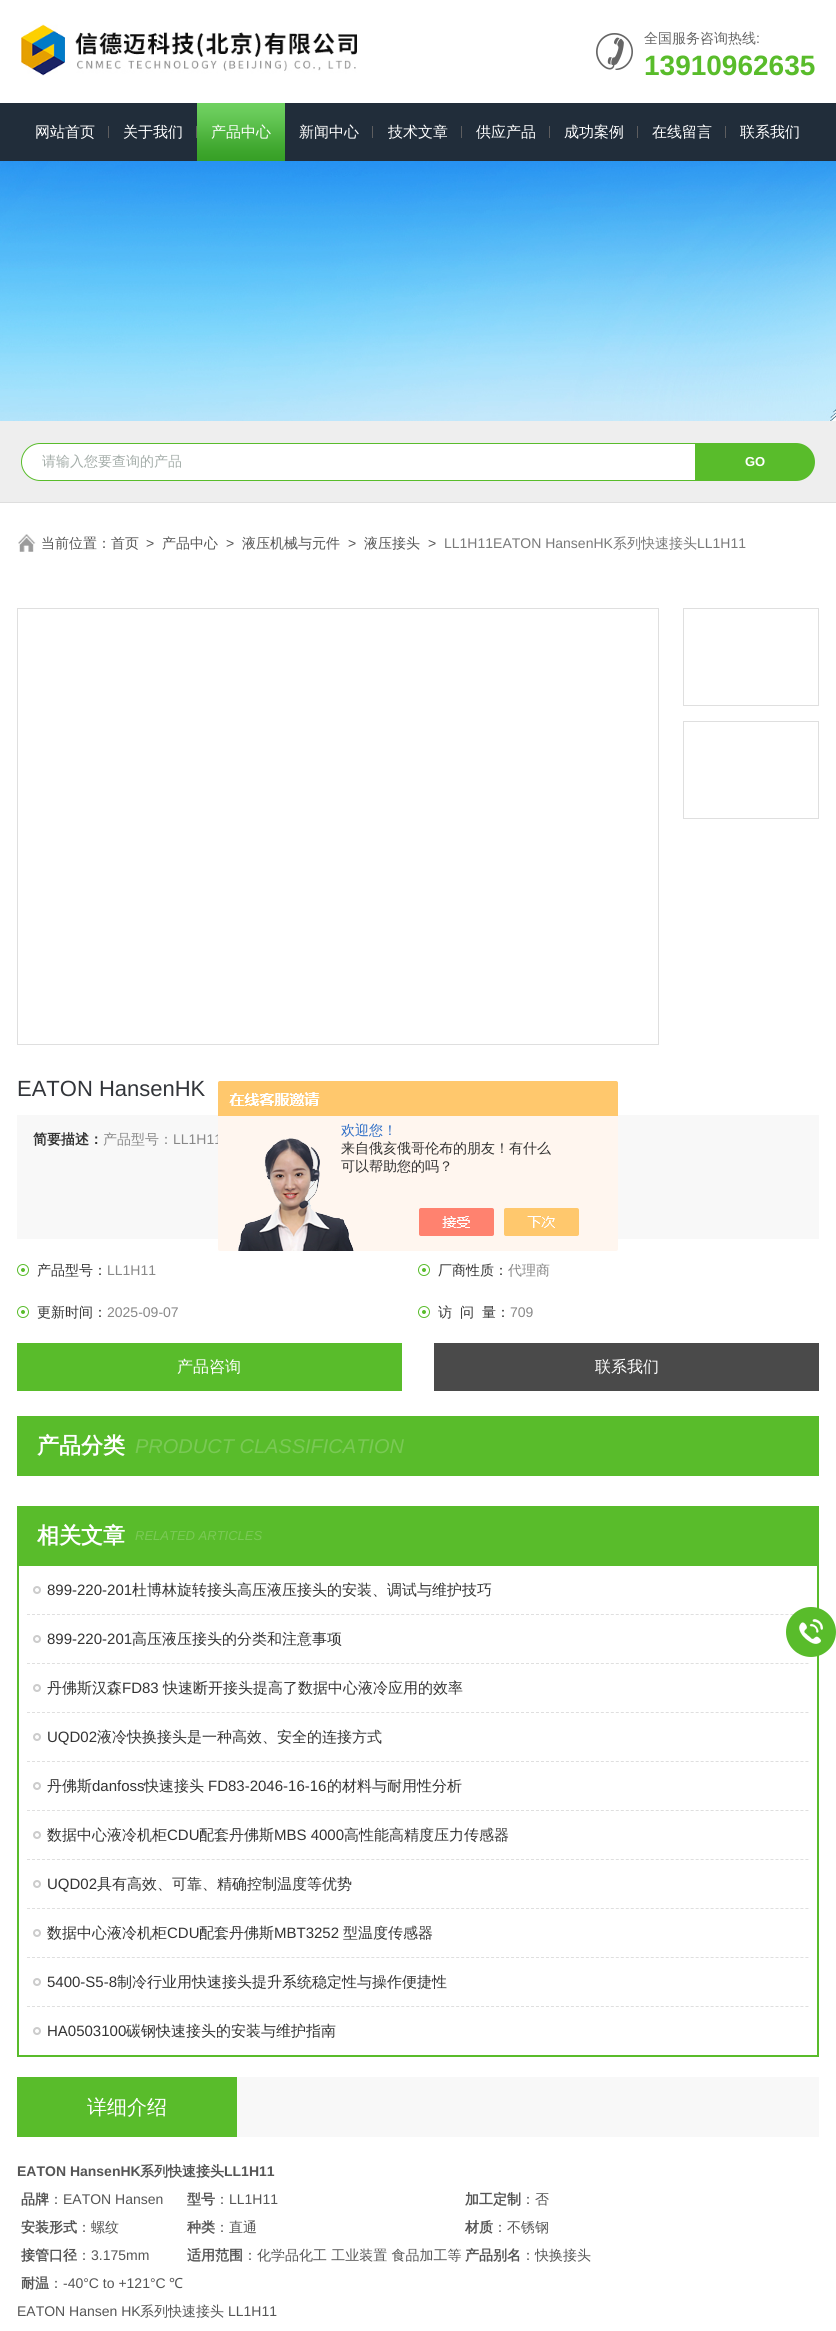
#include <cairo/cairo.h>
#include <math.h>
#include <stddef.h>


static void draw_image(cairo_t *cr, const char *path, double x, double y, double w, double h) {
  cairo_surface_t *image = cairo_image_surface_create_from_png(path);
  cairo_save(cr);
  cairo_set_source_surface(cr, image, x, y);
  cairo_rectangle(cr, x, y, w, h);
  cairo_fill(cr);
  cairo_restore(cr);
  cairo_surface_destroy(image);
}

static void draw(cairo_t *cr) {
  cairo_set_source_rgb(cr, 1, 1, 1);
  cairo_paint(cr);
  draw_image(cr, "images/1.png", 21, 24, 336, 52);
  draw_image(cr, "images/2.png", 596, 33, 37, 37);
  cairo_set_source_rgb(cr, 33 / 255.0, 45 / 255.0, 58 / 255.0);
  cairo_rectangle(cr, 0, 103, 836, 58);
  cairo_fill(cr);
  cairo_set_source_rgb(cr, 93 / 255.0, 93 / 255.0, 95 / 255.0);
  cairo_rectangle(cr, 108, 126, 1, 12);
  cairo_fill(cr);
  cairo_rectangle(cr, 196, 126, 1, 12);
  cairo_fill(cr);
  draw_image(cr, "images/3.png", 197, 103, 88, 58);
  cairo_rectangle(cr, 372, 126, 1, 12);
  cairo_fill(cr);
  cairo_rectangle(cr, 461, 126, 1, 12);
  cairo_fill(cr);
  cairo_rectangle(cr, 549, 126, 1, 12);
  cairo_fill(cr);
  cairo_rectangle(cr, 637, 126, 1, 12);
  cairo_fill(cr);
  cairo_rectangle(cr, 725, 126, 1, 12);
  cairo_fill(cr);
  draw_image(cr, "images/4.png", 0, 161, 836, 260);
  cairo_set_source_rgb(cr, 238 / 255.0, 238 / 255.0, 238 / 255.0);
  cairo_rectangle(cr, 0, 421, 836, 81);
  cairo_fill(cr);
  cairo_set_source_rgb(cr, 222 / 255.0, 222 / 255.0, 222 / 255.0);
  cairo_rectangle(cr, 0, 502, 836, 1);
  cairo_fill(cr);
  cairo_set_source_rgb(cr, 1, 1, 1);
  cairo_new_path(cr);
  cairo_move_to(cr, 40, 443.5);
  cairo_line_to(cr, 695.5, 443.5);
  cairo_line_to(cr, 695.5, 480.5);
  cairo_line_to(cr, 40, 480.5);
  cairo_curve_to(cr, 30, 480.5, 21.5, 472, 21.5, 462);
  cairo_curve_to(cr, 21.5, 452, 30, 443.5, 40, 443.5);
  cairo_close_path(cr);
  cairo_fill_preserve(cr);
  cairo_set_source_rgb(cr, 89 / 255.0, 188 / 255.0, 43 / 255.0);
  cairo_set_line_width(cr, 1);
  cairo_stroke(cr);
  cairo_new_path(cr);
  cairo_move_to(cr, 696, 443);
  cairo_line_to(cr, 796, 443);
  cairo_curve_to(cr, 806.5, 443, 815, 451.5, 815, 462);
  cairo_curve_to(cr, 815, 472.5, 806.5, 481, 796, 481);
  cairo_line_to(cr, 696, 481);
  cairo_close_path(cr);
  cairo_fill(cr);
  draw_image(cr, "images/5.png", 18, 534, 18, 18);
  cairo_rectangle(cr, 17.5, 608.5, 641, 436);
  cairo_set_source_rgb(cr, 223 / 255.0, 223 / 255.0, 223 / 255.0);
  cairo_stroke(cr);
  cairo_rectangle(cr, 683.5, 608.5, 135, 97);
  cairo_stroke(cr);
  cairo_rectangle(cr, 683.5, 721.5, 135, 97);
  cairo_stroke(cr);
  cairo_set_source_rgb(cr, 248 / 255.0, 248 / 255.0, 248 / 255.0);
  cairo_rectangle(cr, 17, 1115, 802, 124);
  cairo_fill(cr);
  draw_image(cr, "images/6.png", 17, 1264, 12, 12);
  draw_image(cr, "images/6.png", 418, 1264, 12, 12);
  draw_image(cr, "images/6.png", 17, 1306, 12, 12);
  draw_image(cr, "images/6.png", 418, 1306, 12, 12);
  cairo_set_source_rgb(cr, 89 / 255.0, 188 / 255.0, 43 / 255.0);
  cairo_rectangle(cr, 17, 1343, 385, 48);
  cairo_fill(cr);
  cairo_set_source_rgb(cr, 74 / 255.0, 74 / 255.0, 74 / 255.0);
  cairo_rectangle(cr, 434, 1343, 385, 48);
  cairo_fill(cr);
  cairo_set_source_rgb(cr, 89 / 255.0, 188 / 255.0, 43 / 255.0);
  cairo_rectangle(cr, 17, 1416, 802, 60);
  cairo_fill(cr);
  cairo_rectangle(cr, 17, 1506, 802, 60);
  cairo_fill(cr);
  cairo_rectangle(cr, 817, 1566, 2, 491);
  cairo_fill(cr);
  cairo_rectangle(cr, 17, 2055, 802, 2);
  cairo_fill(cr);
  cairo_rectangle(cr, 17, 1566, 2, 491);
  cairo_fill(cr);
  cairo_new_path(cr);
  cairo_move_to(cr, 27, 1614.5);
  cairo_line_to(cr, 809, 1614.5);
  cairo_set_source_rgb(cr, 223 / 255.0, 223 / 255.0, 223 / 255.0);
  cairo_set_dash(cr, (double[]){3, 1.99}, 2, 0);
  cairo_stroke(cr);
  draw_image(cr, "images/7.png", 33, 1586, 8, 8);
  cairo_new_path(cr);
  cairo_move_to(cr, 27, 1663.5);
  cairo_line_to(cr, 809, 1663.5);
  cairo_stroke(cr);
  draw_image(cr, "images/7.png", 33, 1635, 8, 8);
  cairo_new_path(cr);
  cairo_move_to(cr, 27, 1712.5);
  cairo_line_to(cr, 809, 1712.5);
  cairo_stroke(cr);
  draw_image(cr, "images/7.png", 33, 1684, 8, 8);
  cairo_new_path(cr);
  cairo_move_to(cr, 27, 1761.5);
  cairo_line_to(cr, 809, 1761.5);
  cairo_stroke(cr);
  draw_image(cr, "images/7.png", 33, 1733, 8, 8);
  cairo_new_path(cr);
  cairo_move_to(cr, 27, 1810.5);
  cairo_line_to(cr, 809, 1810.5);
  cairo_stroke(cr);
  draw_image(cr, "images/7.png", 33, 1782, 8, 8);
  cairo_new_path(cr);
  cairo_move_to(cr, 27, 1859.5);
  cairo_line_to(cr, 809, 1859.5);
  cairo_stroke(cr);
  draw_image(cr, "images/7.png", 33, 1831, 8, 8);
  cairo_new_path(cr);
  cairo_move_to(cr, 27, 1908.5);
  cairo_line_to(cr, 809, 1908.5);
  cairo_stroke(cr);
  draw_image(cr, "images/7.png", 33, 1880, 8, 8);
  cairo_new_path(cr);
  cairo_move_to(cr, 27, 1957.5);
  cairo_line_to(cr, 809, 1957.5);
  cairo_stroke(cr);
  draw_image(cr, "images/7.png", 33, 1929, 8, 8);
  cairo_new_path(cr);
  cairo_move_to(cr, 27, 2006.5);
  cairo_line_to(cr, 809, 2006.5);
  cairo_stroke(cr);
  draw_image(cr, "images/7.png", 33, 1978, 8, 8);
  draw_image(cr, "images/7.png", 33, 2027, 8, 8);
  cairo_set_source_rgb(cr, 248 / 255.0, 248 / 255.0, 248 / 255.0);
  cairo_rectangle(cr, 237, 2077, 582, 60);
  cairo_fill(cr);
  cairo_set_source_rgb(cr, 89 / 255.0, 188 / 255.0, 43 / 255.0);
  cairo_rectangle(cr, 17, 2077, 220, 60);
  cairo_fill(cr);
  cairo_arc(cr, 811, 1632, 25, 0, 2 * M_PI);
  cairo_fill(cr);
  draw_image(cr, "images/9.png", 799, 1619, 24, 25);
  cairo_select_font_face(cr, "WenQuanYi Zen Hei Medium", CAIRO_FONT_SLANT_NORMAL, CAIRO_FONT_WEIGHT_NORMAL);
  cairo_set_font_size(cr, 14);
  cairo_set_source_rgb(cr, 102 / 255.0, 102 / 255.0, 102 / 255.0);
  cairo_move_to(cr, 644, 43);
  cairo_show_text(cr, "全国服务咨询热线");
  cairo_select_font_face(cr, "Liberation Sans", CAIRO_FONT_SLANT_NORMAL, CAIRO_FONT_WEIGHT_NORMAL);
  cairo_move_to(cr, 756, 43);
  cairo_show_text(cr, ":");
  cairo_select_font_face(cr, "Liberation Sans", CAIRO_FONT_SLANT_NORMAL, CAIRO_FONT_WEIGHT_BOLD);
  cairo_set_font_size(cr, 28);
  cairo_set_source_rgb(cr, 89 / 255.0, 188 / 255.0, 43 / 255.0);
  cairo_move_to(cr, 644, 75);
  cairo_show_text(cr, "13910962635");
  cairo_select_font_face(cr, "WenQuanYi Zen Hei Medium", CAIRO_FONT_SLANT_NORMAL, CAIRO_FONT_WEIGHT_NORMAL);
  cairo_set_font_size(cr, 15);
  cairo_set_source_rgb(cr, 1, 1, 1);
  cairo_move_to(cr, 35, 137);
  cairo_show_text(cr, "网站首页");
  cairo_move_to(cr, 123, 137);
  cairo_show_text(cr, "关于我们");
  cairo_move_to(cr, 211, 137);
  cairo_show_text(cr, "产品中心");
  cairo_move_to(cr, 299, 137);
  cairo_show_text(cr, "新闻中心");
  cairo_move_to(cr, 388, 137);
  cairo_show_text(cr, "技术文章");
  cairo_move_to(cr, 476, 137);
  cairo_show_text(cr, "供应产品");
  cairo_move_to(cr, 564, 137);
  cairo_show_text(cr, "成功案例");
  cairo_move_to(cr, 652, 137);
  cairo_show_text(cr, "在线留言");
  cairo_move_to(cr, 740, 137);
  cairo_show_text(cr, "联系我们");
  cairo_set_font_size(cr, 14);
  cairo_set_source_rgb(cr, 164 / 255.0, 173 / 255.0, 169 / 255.0);
  cairo_move_to(cr, 42, 466);
  cairo_show_text(cr, "请输入您要查询的产品");
  cairo_select_font_face(cr, "Liberation Sans", CAIRO_FONT_SLANT_NORMAL, CAIRO_FONT_WEIGHT_BOLD);
  cairo_set_font_size(cr, 13);
  cairo_set_source_rgb(cr, 1, 1, 1);
  cairo_move_to(cr, 745, 466);
  cairo_show_text(cr, "GO");
  cairo_select_font_face(cr, "WenQuanYi Zen Hei Medium", CAIRO_FONT_SLANT_NORMAL, CAIRO_FONT_WEIGHT_NORMAL);
  cairo_set_font_size(cr, 14);
  cairo_set_source_rgb(cr, 85 / 255.0, 85 / 255.0, 85 / 255.0);
  cairo_move_to(cr, 41, 548);
  cairo_show_text(cr, "当前位置：首页");
  cairo_select_font_face(cr, "Liberation Sans", CAIRO_FONT_SLANT_NORMAL, CAIRO_FONT_WEIGHT_NORMAL);
  cairo_move_to(cr, 146, 548);
  cairo_show_text(cr, ">");
  cairo_select_font_face(cr, "WenQuanYi Zen Hei Medium", CAIRO_FONT_SLANT_NORMAL, CAIRO_FONT_WEIGHT_NORMAL);
  cairo_move_to(cr, 162, 548);
  cairo_show_text(cr, "产品中心");
  cairo_select_font_face(cr, "Liberation Sans", CAIRO_FONT_SLANT_NORMAL, CAIRO_FONT_WEIGHT_NORMAL);
  cairo_move_to(cr, 226, 548);
  cairo_show_text(cr, ">");
  cairo_select_font_face(cr, "WenQuanYi Zen Hei Medium", CAIRO_FONT_SLANT_NORMAL, CAIRO_FONT_WEIGHT_NORMAL);
  cairo_move_to(cr, 242, 548);
  cairo_show_text(cr, "液压机械与元件");
  cairo_select_font_face(cr, "Liberation Sans", CAIRO_FONT_SLANT_NORMAL, CAIRO_FONT_WEIGHT_NORMAL);
  cairo_move_to(cr, 348, 548);
  cairo_show_text(cr, ">");
  cairo_select_font_face(cr, "WenQuanYi Zen Hei Medium", CAIRO_FONT_SLANT_NORMAL, CAIRO_FONT_WEIGHT_NORMAL);
  cairo_move_to(cr, 364, 548);
  cairo_show_text(cr, "液压接头");
  cairo_select_font_face(cr, "Liberation Sans", CAIRO_FONT_SLANT_NORMAL, CAIRO_FONT_WEIGHT_NORMAL);
  cairo_move_to(cr, 428, 548);
  cairo_show_text(cr, ">");
  cairo_set_source_rgb(cr, 121 / 255.0, 121 / 255.0, 121 / 255.0);
  cairo_move_to(cr, 444, 548);
  cairo_show_text(cr, "LL1H11EATON HansenHK");
  cairo_select_font_face(cr, "WenQuanYi Zen Hei Medium", CAIRO_FONT_SLANT_NORMAL, CAIRO_FONT_WEIGHT_NORMAL);
  cairo_move_to(cr, 613, 548);
  cairo_show_text(cr, "系列快速接头");
  cairo_select_font_face(cr, "Liberation Sans", CAIRO_FONT_SLANT_NORMAL, CAIRO_FONT_WEIGHT_NORMAL);
  cairo_move_to(cr, 697, 548);
  cairo_show_text(cr, "LL1H11");
  cairo_set_font_size(cr, 22);
  cairo_set_source_rgb(cr, 50 / 255.0, 53 / 255.0, 58 / 255.0);
  cairo_move_to(cr, 17, 1096);
  cairo_show_text(cr, "EATON HansenHK");
  cairo_select_font_face(cr, "WenQuanYi Zen Hei", CAIRO_FONT_SLANT_NORMAL, CAIRO_FONT_WEIGHT_BOLD);
  cairo_set_font_size(cr, 14);
  cairo_set_source_rgb(cr, 51 / 255.0, 51 / 255.0, 51 / 255.0);
  cairo_move_to(cr, 33, 1144);
  cairo_show_text(cr, "简要描述：");
  cairo_select_font_face(cr, "WenQuanYi Zen Hei Medium", CAIRO_FONT_SLANT_NORMAL, CAIRO_FONT_WEIGHT_NORMAL);
  cairo_set_source_rgb(cr, 136 / 255.0, 136 / 255.0, 136 / 255.0);
  cairo_move_to(cr, 103, 1144);
  cairo_show_text(cr, "产品型号：");
  cairo_select_font_face(cr, "Liberation Sans", CAIRO_FONT_SLANT_NORMAL, CAIRO_FONT_WEIGHT_NORMAL);
  cairo_move_to(cr, 173, 1144);
  cairo_show_text(cr, "LL1H11");
  cairo_select_font_face(cr, "WenQuanYi Zen Hei Medium", CAIRO_FONT_SLANT_NORMAL, CAIRO_FONT_WEIGHT_NORMAL);
  cairo_set_source_rgb(cr, 51 / 255.0, 51 / 255.0, 51 / 255.0);
  cairo_move_to(cr, 37, 1275);
  cairo_show_text(cr, "产品型号：");
  cairo_select_font_face(cr, "Liberation Sans", CAIRO_FONT_SLANT_NORMAL, CAIRO_FONT_WEIGHT_NORMAL);
  cairo_set_source_rgb(cr, 136 / 255.0, 136 / 255.0, 136 / 255.0);
  cairo_move_to(cr, 107, 1275);
  cairo_show_text(cr, "LL1H11");
  cairo_select_font_face(cr, "WenQuanYi Zen Hei Medium", CAIRO_FONT_SLANT_NORMAL, CAIRO_FONT_WEIGHT_NORMAL);
  cairo_set_source_rgb(cr, 51 / 255.0, 51 / 255.0, 51 / 255.0);
  cairo_move_to(cr, 438, 1275);
  cairo_show_text(cr, "厂商性质：");
  cairo_set_source_rgb(cr, 136 / 255.0, 136 / 255.0, 136 / 255.0);
  cairo_move_to(cr, 508, 1275);
  cairo_show_text(cr, "代理商");
  cairo_set_source_rgb(cr, 51 / 255.0, 51 / 255.0, 51 / 255.0);
  cairo_move_to(cr, 37, 1317);
  cairo_show_text(cr, "更新时间：");
  cairo_select_font_face(cr, "Liberation Sans", CAIRO_FONT_SLANT_NORMAL, CAIRO_FONT_WEIGHT_NORMAL);
  cairo_set_source_rgb(cr, 136 / 255.0, 136 / 255.0, 136 / 255.0);
  cairo_move_to(cr, 107, 1317);
  cairo_show_text(cr, "2025-09-07");
  cairo_select_font_face(cr, "WenQuanYi Zen Hei Medium", CAIRO_FONT_SLANT_NORMAL, CAIRO_FONT_WEIGHT_NORMAL);
  cairo_set_source_rgb(cr, 51 / 255.0, 51 / 255.0, 51 / 255.0);
  cairo_move_to(cr, 438, 1317);
  cairo_show_text(cr, "访");
  cairo_move_to(cr, 460, 1317);
  cairo_show_text(cr, "问");
  cairo_move_to(cr, 482, 1317);
  cairo_show_text(cr, "量：");
  cairo_select_font_face(cr, "Liberation Sans", CAIRO_FONT_SLANT_NORMAL, CAIRO_FONT_WEIGHT_NORMAL);
  cairo_set_source_rgb(cr, 136 / 255.0, 136 / 255.0, 136 / 255.0);
  cairo_move_to(cr, 510, 1317);
  cairo_show_text(cr, "709");
  cairo_select_font_face(cr, "WenQuanYi Zen Hei Medium", CAIRO_FONT_SLANT_NORMAL, CAIRO_FONT_WEIGHT_NORMAL);
  cairo_set_font_size(cr, 16);
  cairo_set_source_rgb(cr, 1, 1, 1);
  cairo_move_to(cr, 177, 1372);
  cairo_show_text(cr, "产品咨询");
  cairo_move_to(cr, 595, 1372);
  cairo_show_text(cr, "联系我们");
  cairo_select_font_face(cr, "WenQuanYi Zen Hei", CAIRO_FONT_SLANT_NORMAL, CAIRO_FONT_WEIGHT_BOLD);
  cairo_set_font_size(cr, 22);
  cairo_move_to(cr, 37, 1453);
  cairo_show_text(cr, "产品分类");
  cairo_select_font_face(cr, "Liberation Sans", CAIRO_FONT_SLANT_ITALIC, CAIRO_FONT_WEIGHT_NORMAL);
  cairo_set_font_size(cr, 20);
  cairo_set_source_rgb(cr, 122 / 255.0, 201 / 255.0, 85 / 255.0);
  cairo_move_to(cr, 135, 1453);
  cairo_show_text(cr, "PRODUCT CLASSIFICATION");
  cairo_select_font_face(cr, "WenQuanYi Zen Hei", CAIRO_FONT_SLANT_NORMAL, CAIRO_FONT_WEIGHT_BOLD);
  cairo_set_font_size(cr, 22);
  cairo_set_source_rgb(cr, 1, 1, 1);
  cairo_move_to(cr, 37, 1543);
  cairo_show_text(cr, "相关文章");
  cairo_select_font_face(cr, "Liberation Sans", CAIRO_FONT_SLANT_ITALIC, CAIRO_FONT_WEIGHT_NORMAL);
  cairo_set_font_size(cr, 13);
  cairo_set_source_rgb(cr, 122 / 255.0, 201 / 255.0, 85 / 255.0);
  cairo_move_to(cr, 135, 1540);
  cairo_show_text(cr, "RELATED ARTICLES");
  cairo_select_font_face(cr, "Liberation Sans", CAIRO_FONT_SLANT_NORMAL, CAIRO_FONT_WEIGHT_NORMAL);
  cairo_set_font_size(cr, 15);
  cairo_set_source_rgb(cr, 51 / 255.0, 51 / 255.0, 51 / 255.0);
  cairo_move_to(cr, 47, 1595);
  cairo_show_text(cr, "899-220-201");
  cairo_select_font_face(cr, "WenQuanYi Zen Hei Medium", CAIRO_FONT_SLANT_NORMAL, CAIRO_FONT_WEIGHT_NORMAL);
  cairo_move_to(cr, 132, 1595);
  cairo_show_text(cr, "杜博林旋转接头高压液压接头的安装、调试与维护技巧");
  cairo_select_font_face(cr, "Liberation Sans", CAIRO_FONT_SLANT_NORMAL, CAIRO_FONT_WEIGHT_NORMAL);
  cairo_move_to(cr, 47, 1644);
  cairo_show_text(cr, "899-220-201");
  cairo_select_font_face(cr, "WenQuanYi Zen Hei Medium", CAIRO_FONT_SLANT_NORMAL, CAIRO_FONT_WEIGHT_NORMAL);
  cairo_move_to(cr, 132, 1644);
  cairo_show_text(cr, "高压液压接头的分类和注意事项");
  cairo_move_to(cr, 47, 1693);
  cairo_show_text(cr, "丹佛斯汉森");
  cairo_select_font_face(cr, "Liberation Sans", CAIRO_FONT_SLANT_NORMAL, CAIRO_FONT_WEIGHT_NORMAL);
  cairo_move_to(cr, 122, 1693);
  cairo_show_text(cr, "FD83");
  cairo_select_font_face(cr, "WenQuanYi Zen Hei Medium", CAIRO_FONT_SLANT_NORMAL, CAIRO_FONT_WEIGHT_NORMAL);
  cairo_move_to(cr, 163, 1693);
  cairo_show_text(cr, "快速断开接头提高了数据中心液冷应用的效率");
  cairo_select_font_face(cr, "Liberation Sans", CAIRO_FONT_SLANT_NORMAL, CAIRO_FONT_WEIGHT_NORMAL);
  cairo_move_to(cr, 47, 1742);
  cairo_show_text(cr, "UQD02");
  cairo_select_font_face(cr, "WenQuanYi Zen Hei Medium", CAIRO_FONT_SLANT_NORMAL, CAIRO_FONT_WEIGHT_NORMAL);
  cairo_move_to(cr, 97, 1742);
  cairo_show_text(cr, "液冷快换接头是一种高效、安全的连接方式");
  cairo_move_to(cr, 47, 1791);
  cairo_show_text(cr, "丹佛斯");
  cairo_select_font_face(cr, "Liberation Sans", CAIRO_FONT_SLANT_NORMAL, CAIRO_FONT_WEIGHT_NORMAL);
  cairo_move_to(cr, 92, 1791);
  cairo_show_text(cr, "danfoss");
  cairo_select_font_face(cr, "WenQuanYi Zen Hei Medium", CAIRO_FONT_SLANT_NORMAL, CAIRO_FONT_WEIGHT_NORMAL);
  cairo_move_to(cr, 144, 1791);
  cairo_show_text(cr, "快速接头");
  cairo_select_font_face(cr, "Liberation Sans", CAIRO_FONT_SLANT_NORMAL, CAIRO_FONT_WEIGHT_NORMAL);
  cairo_move_to(cr, 208, 1791);
  cairo_show_text(cr, "FD83-2046-16-16");
  cairo_select_font_face(cr, "WenQuanYi Zen Hei Medium", CAIRO_FONT_SLANT_NORMAL, CAIRO_FONT_WEIGHT_NORMAL);
  cairo_move_to(cr, 327, 1791);
  cairo_show_text(cr, "的材料与耐用性分析");
  cairo_move_to(cr, 47, 1840);
  cairo_show_text(cr, "数据中心液冷机柜");
  cairo_select_font_face(cr, "Liberation Sans", CAIRO_FONT_SLANT_NORMAL, CAIRO_FONT_WEIGHT_NORMAL);
  cairo_move_to(cr, 167, 1840);
  cairo_show_text(cr, "CDU");
  cairo_select_font_face(cr, "WenQuanYi Zen Hei Medium", CAIRO_FONT_SLANT_NORMAL, CAIRO_FONT_WEIGHT_NORMAL);
  cairo_move_to(cr, 199, 1840);
  cairo_show_text(cr, "配套丹佛斯");
  cairo_select_font_face(cr, "Liberation Sans", CAIRO_FONT_SLANT_NORMAL, CAIRO_FONT_WEIGHT_NORMAL);
  cairo_move_to(cr, 274, 1840);
  cairo_show_text(cr, "MBS 4000");
  cairo_select_font_face(cr, "WenQuanYi Zen Hei Medium", CAIRO_FONT_SLANT_NORMAL, CAIRO_FONT_WEIGHT_NORMAL);
  cairo_move_to(cr, 344, 1840);
  cairo_show_text(cr, "高性能高精度压力传感器");
  cairo_select_font_face(cr, "Liberation Sans", CAIRO_FONT_SLANT_NORMAL, CAIRO_FONT_WEIGHT_NORMAL);
  cairo_move_to(cr, 47, 1889);
  cairo_show_text(cr, "UQD02");
  cairo_select_font_face(cr, "WenQuanYi Zen Hei Medium", CAIRO_FONT_SLANT_NORMAL, CAIRO_FONT_WEIGHT_NORMAL);
  cairo_move_to(cr, 97, 1889);
  cairo_show_text(cr, "具有高效、可靠、精确控制温度等优势");
  cairo_move_to(cr, 47, 1938);
  cairo_show_text(cr, "数据中心液冷机柜");
  cairo_select_font_face(cr, "Liberation Sans", CAIRO_FONT_SLANT_NORMAL, CAIRO_FONT_WEIGHT_NORMAL);
  cairo_move_to(cr, 167, 1938);
  cairo_show_text(cr, "CDU");
  cairo_select_font_face(cr, "WenQuanYi Zen Hei Medium", CAIRO_FONT_SLANT_NORMAL, CAIRO_FONT_WEIGHT_NORMAL);
  cairo_move_to(cr, 199, 1938);
  cairo_show_text(cr, "配套丹佛斯");
  cairo_select_font_face(cr, "Liberation Sans", CAIRO_FONT_SLANT_NORMAL, CAIRO_FONT_WEIGHT_NORMAL);
  cairo_move_to(cr, 274, 1938);
  cairo_show_text(cr, "MBT3252");
  cairo_select_font_face(cr, "WenQuanYi Zen Hei Medium", CAIRO_FONT_SLANT_NORMAL, CAIRO_FONT_WEIGHT_NORMAL);
  cairo_move_to(cr, 343, 1938);
  cairo_show_text(cr, "型温度传感器");
  cairo_select_font_face(cr, "Liberation Sans", CAIRO_FONT_SLANT_NORMAL, CAIRO_FONT_WEIGHT_NORMAL);
  cairo_move_to(cr, 47, 1987);
  cairo_show_text(cr, "5400-S5-8");
  cairo_select_font_face(cr, "WenQuanYi Zen Hei Medium", CAIRO_FONT_SLANT_NORMAL, CAIRO_FONT_WEIGHT_NORMAL);
  cairo_move_to(cr, 117, 1987);
  cairo_show_text(cr, "制冷行业用快速接头提升系统稳定性与操作便捷性");
  cairo_select_font_face(cr, "Liberation Sans", CAIRO_FONT_SLANT_NORMAL, CAIRO_FONT_WEIGHT_NORMAL);
  cairo_move_to(cr, 47, 2036);
  cairo_show_text(cr, "HA0503100");
  cairo_select_font_face(cr, "WenQuanYi Zen Hei Medium", CAIRO_FONT_SLANT_NORMAL, CAIRO_FONT_WEIGHT_NORMAL);
  cairo_move_to(cr, 126, 2036);
  cairo_show_text(cr, "碳钢快速接头的安装与维护指南");
  cairo_set_font_size(cr, 20);
  cairo_set_source_rgb(cr, 1, 1, 1);
  cairo_move_to(cr, 87, 2114);
  cairo_show_text(cr, "详细介绍");
  cairo_select_font_face(cr, "Liberation Sans", CAIRO_FONT_SLANT_NORMAL, CAIRO_FONT_WEIGHT_BOLD);
  cairo_set_font_size(cr, 14);
  cairo_set_source_rgb(cr, 85 / 255.0, 85 / 255.0, 85 / 255.0);
  cairo_move_to(cr, 17, 2176);
  cairo_show_text(cr, "EATON HansenHK");
  cairo_select_font_face(cr, "WenQuanYi Zen Hei", CAIRO_FONT_SLANT_NORMAL, CAIRO_FONT_WEIGHT_BOLD);
  cairo_move_to(cr, 140, 2176);
  cairo_show_text(cr, "系列快速接头");
  cairo_select_font_face(cr, "Liberation Sans", CAIRO_FONT_SLANT_NORMAL, CAIRO_FONT_WEIGHT_BOLD);
  cairo_move_to(cr, 224, 2176);
  cairo_show_text(cr, "LL1H11");
  cairo_select_font_face(cr, "WenQuanYi Zen Hei", CAIRO_FONT_SLANT_NORMAL, CAIRO_FONT_WEIGHT_BOLD);
  cairo_move_to(cr, 21, 2204);
  cairo_show_text(cr, "品牌");
  cairo_select_font_face(cr, "WenQuanYi Zen Hei Medium", CAIRO_FONT_SLANT_NORMAL, CAIRO_FONT_WEIGHT_NORMAL);
  cairo_move_to(cr, 49, 2204);
  cairo_show_text(cr, "：");
  cairo_select_font_face(cr, "Liberation Sans", CAIRO_FONT_SLANT_NORMAL, CAIRO_FONT_WEIGHT_NORMAL);
  cairo_move_to(cr, 63, 2204);
  cairo_show_text(cr, "EATON Hansen");
  cairo_select_font_face(cr, "WenQuanYi Zen Hei", CAIRO_FONT_SLANT_NORMAL, CAIRO_FONT_WEIGHT_BOLD);
  cairo_move_to(cr, 187, 2204);
  cairo_show_text(cr, "型号");
  cairo_select_font_face(cr, "WenQuanYi Zen Hei Medium", CAIRO_FONT_SLANT_NORMAL, CAIRO_FONT_WEIGHT_NORMAL);
  cairo_move_to(cr, 215, 2204);
  cairo_show_text(cr, "：");
  cairo_select_font_face(cr, "Liberation Sans", CAIRO_FONT_SLANT_NORMAL, CAIRO_FONT_WEIGHT_NORMAL);
  cairo_move_to(cr, 229, 2204);
  cairo_show_text(cr, "LL1H11");
  cairo_select_font_face(cr, "WenQuanYi Zen Hei", CAIRO_FONT_SLANT_NORMAL, CAIRO_FONT_WEIGHT_BOLD);
  cairo_move_to(cr, 465, 2204);
  cairo_show_text(cr, "加工定制");
  cairo_select_font_face(cr, "WenQuanYi Zen Hei Medium", CAIRO_FONT_SLANT_NORMAL, CAIRO_FONT_WEIGHT_NORMAL);
  cairo_move_to(cr, 521, 2204);
  cairo_show_text(cr, "：否");
  cairo_select_font_face(cr, "WenQuanYi Zen Hei", CAIRO_FONT_SLANT_NORMAL, CAIRO_FONT_WEIGHT_BOLD);
  cairo_move_to(cr, 21, 2232);
  cairo_show_text(cr, "安装形式");
  cairo_select_font_face(cr, "WenQuanYi Zen Hei Medium", CAIRO_FONT_SLANT_NORMAL, CAIRO_FONT_WEIGHT_NORMAL);
  cairo_move_to(cr, 77, 2232);
  cairo_show_text(cr, "：螺纹");
  cairo_select_font_face(cr, "WenQuanYi Zen Hei", CAIRO_FONT_SLANT_NORMAL, CAIRO_FONT_WEIGHT_BOLD);
  cairo_move_to(cr, 187, 2232);
  cairo_show_text(cr, "种类");
  cairo_select_font_face(cr, "WenQuanYi Zen Hei Medium", CAIRO_FONT_SLANT_NORMAL, CAIRO_FONT_WEIGHT_NORMAL);
  cairo_move_to(cr, 215, 2232);
  cairo_show_text(cr, "：直通");
  cairo_select_font_face(cr, "WenQuanYi Zen Hei", CAIRO_FONT_SLANT_NORMAL, CAIRO_FONT_WEIGHT_BOLD);
  cairo_move_to(cr, 465, 2232);
  cairo_show_text(cr, "材质");
  cairo_select_font_face(cr, "WenQuanYi Zen Hei Medium", CAIRO_FONT_SLANT_NORMAL, CAIRO_FONT_WEIGHT_NORMAL);
  cairo_move_to(cr, 493, 2232);
  cairo_show_text(cr, "：不锈钢");
  cairo_select_font_face(cr, "WenQuanYi Zen Hei", CAIRO_FONT_SLANT_NORMAL, CAIRO_FONT_WEIGHT_BOLD);
  cairo_move_to(cr, 21, 2260);
  cairo_show_text(cr, "接管口径");
  cairo_select_font_face(cr, "WenQuanYi Zen Hei Medium", CAIRO_FONT_SLANT_NORMAL, CAIRO_FONT_WEIGHT_NORMAL);
  cairo_move_to(cr, 77, 2260);
  cairo_show_text(cr, "：");
  cairo_select_font_face(cr, "Liberation Sans", CAIRO_FONT_SLANT_NORMAL, CAIRO_FONT_WEIGHT_NORMAL);
  cairo_move_to(cr, 91, 2260);
  cairo_show_text(cr, "3.175mm");
  cairo_select_font_face(cr, "WenQuanYi Zen Hei", CAIRO_FONT_SLANT_NORMAL, CAIRO_FONT_WEIGHT_BOLD);
  cairo_move_to(cr, 187, 2260);
  cairo_show_text(cr, "适用范围");
  cairo_select_font_face(cr, "WenQuanYi Zen Hei Medium", CAIRO_FONT_SLANT_NORMAL, CAIRO_FONT_WEIGHT_NORMAL);
  cairo_move_to(cr, 243, 2260);
  cairo_show_text(cr, "：化学品化工 工业装置 食品加工等");
  cairo_select_font_face(cr, "WenQuanYi Zen Hei", CAIRO_FONT_SLANT_NORMAL, CAIRO_FONT_WEIGHT_BOLD);
  cairo_move_to(cr, 465, 2260);
  cairo_show_text(cr, "产品别名");
  cairo_select_font_face(cr, "WenQuanYi Zen Hei Medium", CAIRO_FONT_SLANT_NORMAL, CAIRO_FONT_WEIGHT_NORMAL);
  cairo_move_to(cr, 521, 2260);
  cairo_show_text(cr, "：快换接头");
  cairo_select_font_face(cr, "WenQuanYi Zen Hei", CAIRO_FONT_SLANT_NORMAL, CAIRO_FONT_WEIGHT_BOLD);
  cairo_move_to(cr, 21, 2288);
  cairo_show_text(cr, "耐温");
  cairo_select_font_face(cr, "WenQuanYi Zen Hei Medium", CAIRO_FONT_SLANT_NORMAL, CAIRO_FONT_WEIGHT_NORMAL);
  cairo_move_to(cr, 49, 2288);
  cairo_show_text(cr, "：");
  cairo_select_font_face(cr, "Liberation Sans", CAIRO_FONT_SLANT_NORMAL, CAIRO_FONT_WEIGHT_NORMAL);
  cairo_move_to(cr, 63, 2288);
  cairo_show_text(cr, "-40°C to +121°C");
  cairo_select_font_face(cr, "Noto Sans", CAIRO_FONT_SLANT_NORMAL, CAIRO_FONT_WEIGHT_NORMAL);
  cairo_move_to(cr, 169, 2288);
  cairo_show_text(cr, "℃");
  cairo_select_font_face(cr, "Liberation Sans", CAIRO_FONT_SLANT_NORMAL, CAIRO_FONT_WEIGHT_NORMAL);
  cairo_move_to(cr, 17, 2316);
  cairo_show_text(cr, "EATON Hansen HK");
  cairo_select_font_face(cr, "WenQuanYi Zen Hei Medium", CAIRO_FONT_SLANT_NORMAL, CAIRO_FONT_WEIGHT_NORMAL);
  cairo_move_to(cr, 140, 2316);
  cairo_show_text(cr, "系列快速接头");
  cairo_select_font_face(cr, "Liberation Sans", CAIRO_FONT_SLANT_NORMAL, CAIRO_FONT_WEIGHT_NORMAL);
  cairo_move_to(cr, 228, 2316);
  cairo_show_text(cr, "LL1H11");
  draw_image(cr, "images/8.png", 218, 1081, 400, 170);
  cairo_select_font_face(cr, "WenQuanYi Zen Hei Medium", CAIRO_FONT_SLANT_NORMAL, CAIRO_FONT_WEIGHT_NORMAL);
  cairo_set_source_rgb(cr, 46 / 255.0, 110 / 255.0, 198 / 255.0);
  cairo_move_to(cr, 341, 1135);
  cairo_show_text(cr, "欢迎您！");
  cairo_set_source_rgb(cr, 51 / 255.0, 51 / 255.0, 51 / 255.0);
  cairo_move_to(cr, 341, 1153);
  cairo_show_text(cr, "来自俄亥俄哥伦布的朋友！有什么");
  cairo_move_to(cr, 341, 1171);
  cairo_show_text(cr, "可以帮助您的吗？");
}

int main(void) {
  cairo_surface_t *surface = cairo_image_surface_create(CAIRO_FORMAT_RGB24, 836, 2331);
  cairo_t *cr = cairo_create(surface);
  cairo_font_options_t *options = cairo_font_options_create();
  cairo_font_options_set_hint_metrics(options, CAIRO_HINT_METRICS_OFF);
  cairo_font_options_set_hint_style(options, CAIRO_HINT_STYLE_NONE);
  cairo_set_font_options(cr, options);
  cairo_set_miter_limit(cr, 4);
  draw(cr);
  cairo_surface_write_to_png(surface, "out.png");
  cairo_font_options_destroy(options);
  cairo_destroy(cr);
  cairo_surface_destroy(surface);
  return 0;
}
